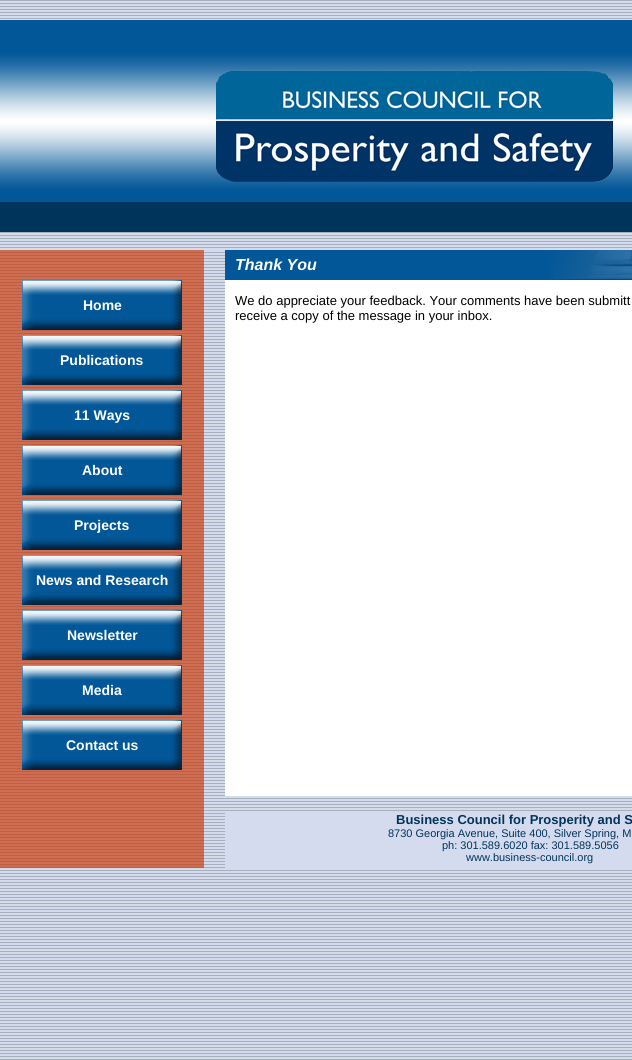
#include <cairo/cairo.h>
#include <math.h>
#include <stddef.h>


static void draw_image(cairo_t *cr, const char *path, double x, double y, double w, double h) {
  cairo_surface_t *image = cairo_image_surface_create_from_png(path);
  cairo_save(cr);
  cairo_set_source_surface(cr, image, x, y);
  cairo_rectangle(cr, x, y, w, h);
  cairo_fill(cr);
  cairo_restore(cr);
  cairo_surface_destroy(image);
}

static void draw(cairo_t *cr) {
  cairo_set_source_rgb(cr, 1, 1, 1);
  cairo_paint(cr);
  draw_image(cr, "images/1.png", 0, 0, 632, 1060);
  cairo_set_source_rgba(cr, 204 / 255.0, 51 / 255.0, 0, 0.65);
  cairo_rectangle(cr, 0, 250, 204, 618);
  cairo_fill(cr);
  draw_image(cr, "images/2.png", 0, 20, 632, 182);
  draw_image(cr, "images/3.png", 0, 232, 632, 18);
  cairo_set_source_rgb(cr, 0, 52 / 255.0, 91 / 255.0);
  cairo_rectangle(cr, 0, 202, 632, 30);
  cairo_fill(cr);
  draw_image(cr, "images/4.png", 22, 280, 160, 50);
  draw_image(cr, "images/4.png", 22, 335, 160, 50);
  draw_image(cr, "images/4.png", 22, 390, 160, 50);
  draw_image(cr, "images/4.png", 22, 445, 160, 50);
  draw_image(cr, "images/4.png", 22, 500, 160, 50);
  draw_image(cr, "images/4.png", 22, 555, 160, 50);
  draw_image(cr, "images/4.png", 22, 610, 160, 50);
  draw_image(cr, "images/4.png", 22, 665, 160, 50);
  draw_image(cr, "images/4.png", 22, 720, 160, 50);
  cairo_set_source_rgb(cr, 1, 1, 1);
  cairo_rectangle(cr, 225, 280, 407, 516);
  cairo_fill(cr);
  cairo_set_source_rgb(cr, 2 / 255.0, 87 / 255.0, 152 / 255.0);
  cairo_rectangle(cr, 225, 250, 407, 30);
  cairo_fill(cr);
  draw_image(cr, "images/5.png", 550, 250, 82, 30);
  cairo_set_source_rgb(cr, 212 / 255.0, 219 / 255.0, 238 / 255.0);
  cairo_rectangle(cr, 225, 813, 407, 55);
  cairo_fill(cr);
  cairo_select_font_face(cr, "Liberation Sans", CAIRO_FONT_SLANT_NORMAL, CAIRO_FONT_WEIGHT_BOLD);
  cairo_set_font_size(cr, 14);
  cairo_set_source_rgb(cr, 1, 1, 1);
  cairo_move_to(cr, 83, 310);
  cairo_show_text(cr, "Home");
  cairo_move_to(cr, 60, 365);
  cairo_show_text(cr, "Publications");
  cairo_move_to(cr, 74, 420);
  cairo_show_text(cr, "11 Ways");
  cairo_move_to(cr, 82, 475);
  cairo_show_text(cr, "About");
  cairo_move_to(cr, 74, 530);
  cairo_show_text(cr, "Projects");
  cairo_move_to(cr, 36, 585);
  cairo_show_text(cr, "News and Research");
  cairo_move_to(cr, 67, 640);
  cairo_show_text(cr, "Newsletter");
  cairo_move_to(cr, 82, 695);
  cairo_show_text(cr, "Media");
  cairo_move_to(cr, 66, 750);
  cairo_show_text(cr, "Contact us");
  cairo_select_font_face(cr, "Liberation Sans", CAIRO_FONT_SLANT_ITALIC, CAIRO_FONT_WEIGHT_BOLD);
  cairo_set_font_size(cr, 16);
  cairo_move_to(cr, 235, 270);
  cairo_show_text(cr, "Thank You");
  cairo_select_font_face(cr, "Liberation Sans", CAIRO_FONT_SLANT_NORMAL, CAIRO_FONT_WEIGHT_NORMAL);
  cairo_set_font_size(cr, 13);
  cairo_set_source_rgb(cr, 0, 0, 0);
  cairo_move_to(cr, 235, 305);
  cairo_show_text(cr, "We do appreciate your feedback. Your comments have been submitt");
  cairo_move_to(cr, 235, 320);
  cairo_show_text(cr, "receive a copy of the message in your inbox.");
  cairo_select_font_face(cr, "Liberation Sans", CAIRO_FONT_SLANT_NORMAL, CAIRO_FONT_WEIGHT_BOLD);
  cairo_set_source_rgb(cr, 0, 52 / 255.0, 91 / 255.0);
  cairo_move_to(cr, 396, 824);
  cairo_show_text(cr, "Business Council for Prosperity and S");
  cairo_select_font_face(cr, "Liberation Sans", CAIRO_FONT_SLANT_NORMAL, CAIRO_FONT_WEIGHT_NORMAL);
  cairo_set_font_size(cr, 11);
  cairo_move_to(cr, 388, 837);
  cairo_show_text(cr, "8730 Georgia Avenue, Suite 400, Silver Spring, M");
  cairo_move_to(cr, 442, 849);
  cairo_show_text(cr, "ph: 301.589.6020 fax: 301.589.5056");
  cairo_move_to(cr, 466, 861);
  cairo_show_text(cr, "www.business-council.org");
}

int main(void) {
  cairo_surface_t *surface = cairo_image_surface_create(CAIRO_FORMAT_RGB24, 632, 1060);
  cairo_t *cr = cairo_create(surface);
  cairo_font_options_t *options = cairo_font_options_create();
  cairo_font_options_set_hint_metrics(options, CAIRO_HINT_METRICS_OFF);
  cairo_font_options_set_hint_style(options, CAIRO_HINT_STYLE_NONE);
  cairo_set_font_options(cr, options);
  cairo_set_miter_limit(cr, 4);
  draw(cr);
  cairo_surface_write_to_png(surface, "out.png");
  cairo_font_options_destroy(options);
  cairo_destroy(cr);
  cairo_surface_destroy(surface);
  return 0;
}
